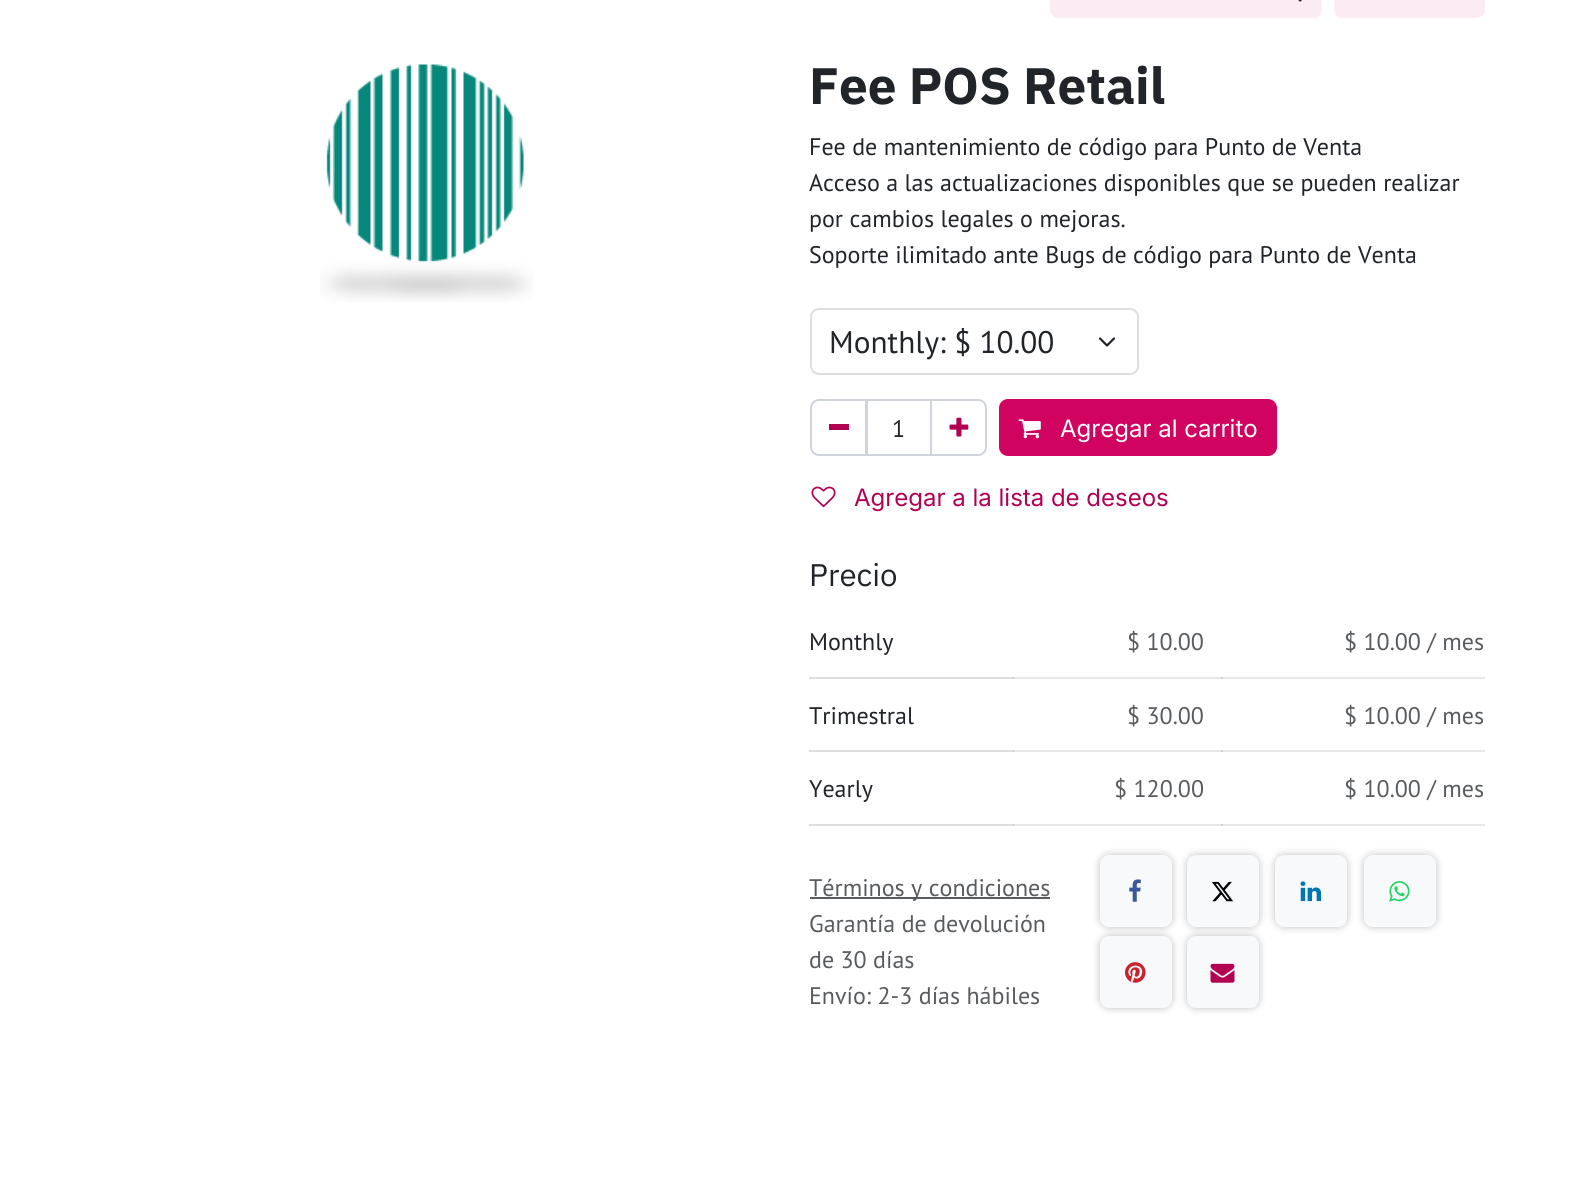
#include <cairo/cairo.h>
#include <math.h>
#include <stddef.h>


static void rounded_rect(cairo_t *cr, double x, double y, double w, double h, double r) {
  cairo_new_sub_path(cr);
  cairo_arc(cr, x + w - r, y + h - r, r, 0, M_PI / 2);
  cairo_arc(cr, x + r, y + h - r, r, M_PI / 2, M_PI);
  cairo_arc(cr, x + r, y + r, r, M_PI, 1.5 * M_PI);
  cairo_arc(cr, x + w - r, y + r, r, 1.5 * M_PI, 2 * M_PI);
  cairo_close_path(cr);
}

static void draw_shadow(cairo_t *cr, double x, double y, double w, double h, double r, double blur, double alpha) {
  cairo_push_group_with_content(cr, CAIRO_CONTENT_ALPHA);
  cairo_set_operator(cr, CAIRO_OPERATOR_SOURCE);
  for (int i = 15; i >= -15 && fmin(w, h) + blur * i / 3 > 0; i -= 2) {
    double e = blur * i / 6;
    cairo_set_source_rgba(cr, 0, 0, 0, alpha * erfc((i - 1) / 8.5) / 2);
    rounded_rect(cr, x - e, y - e, w + 2 * e, h + 2 * e, fmax(0, fmin(r + e + blur * .6, fmin(w, h) / 2 + e)));
    cairo_fill(cr);
  }
  cairo_pattern_t *soft = cairo_pop_group(cr);
  cairo_mask(cr, soft);
  cairo_pattern_destroy(soft);
}

static void draw_image(cairo_t *cr, const char *path, double x, double y, double w, double h) {
  cairo_surface_t *image = cairo_image_surface_create_from_png(path);
  cairo_save(cr);
  cairo_set_source_surface(cr, image, x, y);
  cairo_rectangle(cr, x, y, w, h);
  cairo_fill(cr);
  cairo_restore(cr);
  cairo_surface_destroy(image);
}

static void draw(cairo_t *cr) {
  cairo_set_source_rgb(cr, 1, 1, 1);
  cairo_paint(cr);
  cairo_set_source_rgb(cr, 222 / 255.0, 222 / 255.0, 223 / 255.0);
  cairo_rectangle(cr, 809, 677, 205, 2);
  cairo_fill(cr);
  cairo_set_source_rgb(cr, 231 / 255.0, 231 / 255.0, 231 / 255.0);
  cairo_rectangle(cr, 1013, 677, 210, 2);
  cairo_fill(cr);
  cairo_set_source_rgb(cr, 201 / 255.0, 202 / 255.0, 203 / 255.0);
  cairo_rectangle(cr, 1013, 677, 1, 2);
  cairo_fill(cr);
  cairo_set_source_rgb(cr, 222 / 255.0, 222 / 255.0, 223 / 255.0);
  cairo_rectangle(cr, 809, 750, 205, 2);
  cairo_fill(cr);
  cairo_set_source_rgb(cr, 231 / 255.0, 231 / 255.0, 231 / 255.0);
  cairo_rectangle(cr, 1013, 750, 210, 2);
  cairo_fill(cr);
  cairo_set_source_rgb(cr, 201 / 255.0, 202 / 255.0, 203 / 255.0);
  cairo_rectangle(cr, 1013, 750, 1, 2);
  cairo_fill(cr);
  cairo_set_source_rgb(cr, 222 / 255.0, 222 / 255.0, 223 / 255.0);
  cairo_rectangle(cr, 809, 824, 205, 2);
  cairo_fill(cr);
  cairo_set_source_rgb(cr, 231 / 255.0, 231 / 255.0, 231 / 255.0);
  cairo_rectangle(cr, 1013, 824, 210, 2);
  cairo_fill(cr);
  cairo_set_source_rgb(cr, 201 / 255.0, 202 / 255.0, 203 / 255.0);
  cairo_rectangle(cr, 1013, 824, 1, 2);
  cairo_fill(cr);
  cairo_set_source_rgb(cr, 251 / 255.0, 235 / 255.0, 242 / 255.0);
  cairo_new_path(cr);
  cairo_move_to(cr, 1059, -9);
  cairo_line_to(cr, 1260, -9);
  cairo_line_to(cr, 1260, 18);
  cairo_line_to(cr, 1059, 18);
  cairo_curve_to(cr, 1054, 18, 1050, 14, 1050, 9);
  cairo_line_to(cr, 1050, 0);
  cairo_curve_to(cr, 1050, -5, 1054, -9, 1059, -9);
  cairo_close_path(cr);
  cairo_fill(cr);
  cairo_new_path(cr);
  cairo_move_to(cr, 1260, -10);
  cairo_line_to(cr, 1313, -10);
  cairo_curve_to(cr, 1317.5, -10, 1321, -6.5, 1321, -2);
  cairo_line_to(cr, 1321, 9);
  cairo_curve_to(cr, 1321, 13.5, 1317.5, 17, 1313, 17);
  cairo_line_to(cr, 1260, 17);
  cairo_close_path(cr);
  cairo_fill_preserve(cr);
  cairo_stroke(cr);
  draw_image(cr, "images/1.png", 1298, 0, 4, 2);
  rounded_rect(cr, 1335, -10, 149, 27, 8);
  cairo_fill_preserve(cr);
  cairo_stroke(cr);
  draw_image(cr, "images/2.png", 320, 64, 213, 238);
  cairo_new_path(cr);
  cairo_move_to(cr, 1100, 338.5);
  cairo_line_to(cr, 1107, 345.5);
  cairo_line_to(cr, 1114, 338.5);
  cairo_set_source_rgb(cr, 33 / 255.0, 37 / 255.0, 41 / 255.0);
  cairo_set_line_width(cr, 2.2);
  cairo_set_line_cap(cr, CAIRO_LINE_CAP_ROUND);
  cairo_set_line_join(cr, CAIRO_LINE_JOIN_ROUND);
  cairo_stroke(cr);
  rounded_rect(cr, 811, 309, 327, 65, 8);
  cairo_set_source_rgb(cr, 222 / 255.0, 222 / 255.0, 223 / 255.0);
  cairo_set_line_width(cr, 2);
  cairo_set_line_cap(cr, CAIRO_LINE_CAP_BUTT);
  cairo_set_line_join(cr, CAIRO_LINE_JOIN_MITER);
  cairo_stroke(cr);
  cairo_rectangle(cr, 867, 400, 64, 55);
  cairo_set_source_rgb(cr, 206 / 255.0, 212 / 255.0, 218 / 255.0);
  cairo_stroke(cr);
  cairo_new_path(cr);
  cairo_move_to(cr, 819, 400);
  cairo_line_to(cr, 866, 400);
  cairo_line_to(cr, 866, 455);
  cairo_line_to(cr, 819, 455);
  cairo_curve_to(cr, 814.5, 455, 811, 451.5, 811, 447);
  cairo_line_to(cr, 811, 408);
  cairo_curve_to(cr, 811, 403.5, 814.5, 400, 819, 400);
  cairo_close_path(cr);
  cairo_stroke(cr);
  cairo_set_source_rgb(cr, 178 / 255.0, 3 / 255.0, 82 / 255.0);
  cairo_rectangle(cr, 829, 424, 20, 6);
  cairo_fill(cr);
  cairo_new_path(cr);
  cairo_move_to(cr, 931, 400);
  cairo_line_to(cr, 978, 400);
  cairo_curve_to(cr, 982.5, 400, 986, 403.5, 986, 408);
  cairo_line_to(cr, 986, 447);
  cairo_curve_to(cr, 986, 451.5, 982.5, 455, 978, 455);
  cairo_line_to(cr, 931, 455);
  cairo_close_path(cr);
  cairo_set_source_rgb(cr, 206 / 255.0, 212 / 255.0, 218 / 255.0);
  cairo_stroke(cr);
  draw_image(cr, "images/3.png", 949, 417, 20, 20);
  cairo_set_source_rgb(cr, 208 / 255.0, 4 / 255.0, 96 / 255.0);
  rounded_rect(cr, 1000, 400, 276, 55, 8);
  cairo_fill_preserve(cr);
  cairo_stroke(cr);
  draw_image(cr, "images/4.png", 1018, 419, 23, 20);
  draw_image(cr, "images/5.png", 811, 486, 25, 22);
  cairo_set_source_rgb(cr, 230 / 255.0, 231 / 255.0, 231 / 255.0);
  cairo_rectangle(cr, 1221, 677, 264, 2);
  cairo_fill(cr);
  cairo_set_source_rgb(cr, 208 / 255.0, 210 / 255.0, 210 / 255.0);
  cairo_rectangle(cr, 1221, 677, 2, 2);
  cairo_fill(cr);
  cairo_set_source_rgb(cr, 230 / 255.0, 231 / 255.0, 231 / 255.0);
  cairo_rectangle(cr, 1221, 750, 264, 2);
  cairo_fill(cr);
  cairo_set_source_rgb(cr, 208 / 255.0, 210 / 255.0, 210 / 255.0);
  cairo_rectangle(cr, 1221, 750, 2, 2);
  cairo_fill(cr);
  cairo_set_source_rgb(cr, 230 / 255.0, 231 / 255.0, 231 / 255.0);
  cairo_rectangle(cr, 1221, 824, 264, 2);
  cairo_fill(cr);
  cairo_set_source_rgb(cr, 208 / 255.0, 210 / 255.0, 210 / 255.0);
  cairo_rectangle(cr, 1221, 824, 2, 2);
  cairo_fill(cr);
  cairo_set_source_rgb(cr, 89 / 255.0, 92 / 255.0, 95 / 255.0);
  cairo_rectangle(cr, 810, 897, 240, 2);
  cairo_fill(cr);
  cairo_set_source_rgb(cr, 0, 0, 0);
  draw_shadow(cr, 1100, 855, 72, 72, 9, 4, 0.25);
  cairo_set_source_rgb(cr, 248 / 255.0, 249 / 255.0, 250 / 255.0);
  rounded_rect(cr, 1100, 855, 72, 72, 9);
  cairo_fill(cr);
  draw_image(cr, "images/6.png", 1129, 879, 12, 23);
  cairo_set_source_rgb(cr, 0, 0, 0);
  draw_shadow(cr, 1187, 855, 72, 72, 9, 4, 0.25);
  cairo_set_source_rgb(cr, 248 / 255.0, 249 / 255.0, 250 / 255.0);
  rounded_rect(cr, 1187, 855, 72, 72, 9);
  cairo_fill(cr);
  draw_image(cr, "images/7.png", 1212, 881, 21, 21);
  cairo_set_source_rgb(cr, 0, 0, 0);
  draw_shadow(cr, 1275, 855, 72, 72, 9, 4, 0.25);
  cairo_set_source_rgb(cr, 248 / 255.0, 249 / 255.0, 250 / 255.0);
  rounded_rect(cr, 1275, 855, 72, 72, 9);
  cairo_fill(cr);
  draw_image(cr, "images/8.png", 1300, 881, 22, 21);
  cairo_set_source_rgb(cr, 0, 0, 0);
  draw_shadow(cr, 1364, 855, 72, 72, 9, 4, 0.25);
  cairo_set_source_rgb(cr, 248 / 255.0, 249 / 255.0, 250 / 255.0);
  rounded_rect(cr, 1364, 855, 72, 72, 9);
  cairo_fill(cr);
  draw_image(cr, "images/9.png", 1389, 881, 21, 21);
  cairo_set_source_rgb(cr, 0, 0, 0);
  draw_shadow(cr, 1100, 936, 72, 72, 9, 4, 0.25);
  cairo_set_source_rgb(cr, 248 / 255.0, 249 / 255.0, 250 / 255.0);
  rounded_rect(cr, 1100, 936, 72, 72, 9);
  cairo_fill(cr);
  draw_image(cr, "images/10.png", 1125, 962, 21, 21);
  cairo_set_source_rgb(cr, 0, 0, 0);
  draw_shadow(cr, 1187, 936, 72, 72, 9, 4, 0.25);
  cairo_set_source_rgb(cr, 248 / 255.0, 249 / 255.0, 250 / 255.0);
  rounded_rect(cr, 1187, 936, 72, 72, 9);
  cairo_fill(cr);
  draw_image(cr, "images/11.png", 1210, 963, 25, 20);
  cairo_select_font_face(cr, "IBM Plex Sans", CAIRO_FONT_SLANT_NORMAL, CAIRO_FONT_WEIGHT_BOLD);
  cairo_set_font_size(cr, 51.25);
  cairo_set_source_rgb(cr, 33 / 255.0, 37 / 255.0, 41 / 255.0);
  cairo_move_to(cr, 809, 104);
  cairo_show_text(cr, "Fee POS Retail");
  cairo_select_font_face(cr, "PT Sans", CAIRO_FONT_SLANT_NORMAL, CAIRO_FONT_WEIGHT_NORMAL);
  cairo_set_font_size(cr, 24);
  cairo_move_to(cr, 809, 155);
  cairo_show_text(cr, "Fee de mantenimiento de código para Punto de Venta");
  cairo_move_to(cr, 809, 191);
  cairo_show_text(cr, "Acceso a las actualizaciones disponibles que se pueden realizar");
  cairo_move_to(cr, 809, 227);
  cairo_show_text(cr, "por cambios legales o mejoras.");
  cairo_move_to(cr, 809, 263);
  cairo_show_text(cr, "Soporte ilimitado ante Bugs de código para Punto de Venta");
  cairo_set_font_size(cr, 31.25);
  cairo_move_to(cr, 829, 353);
  cairo_show_text(cr, "Monthly: $ 10.00");
  cairo_set_font_size(cr, 24);
  cairo_move_to(cr, 892, 437);
  cairo_show_text(cr, "1");
  cairo_select_font_face(cr, "Inter", CAIRO_FONT_SLANT_NORMAL, CAIRO_FONT_WEIGHT_NORMAL);
  cairo_set_source_rgb(cr, 1, 1, 1);
  cairo_move_to(cr, 1060, 437);
  cairo_show_text(cr, "Agregar al carrito");
  cairo_set_source_rgb(cr, 178 / 255.0, 3 / 255.0, 82 / 255.0);
  cairo_move_to(cr, 854, 506);
  cairo_show_text(cr, "Agregar a la lista de deseos");
  cairo_select_font_face(cr, "IBM Plex Sans", CAIRO_FONT_SLANT_NORMAL, CAIRO_FONT_WEIGHT_NORMAL);
  cairo_set_font_size(cr, 31.25);
  cairo_set_source_rgb(cr, 33 / 255.0, 37 / 255.0, 41 / 255.0);
  cairo_move_to(cr, 809, 586);
  cairo_show_text(cr, "Precio");
  cairo_select_font_face(cr, "PT Sans", CAIRO_FONT_SLANT_NORMAL, CAIRO_FONT_WEIGHT_NORMAL);
  cairo_set_font_size(cr, 24);
  cairo_move_to(cr, 809, 650);
  cairo_show_text(cr, "Monthly");
  cairo_set_source_rgb(cr, 89 / 255.0, 92 / 255.0, 95 / 255.0);
  cairo_move_to(cr, 1127, 650);
  cairo_show_text(cr, "$ 10.00");
  cairo_move_to(cr, 1344, 650);
  cairo_show_text(cr, "$ 10.00 / mes");
  cairo_set_source_rgb(cr, 33 / 255.0, 37 / 255.0, 41 / 255.0);
  cairo_move_to(cr, 809, 724);
  cairo_show_text(cr, "Trimestral");
  cairo_set_source_rgb(cr, 89 / 255.0, 92 / 255.0, 95 / 255.0);
  cairo_move_to(cr, 1127, 724);
  cairo_show_text(cr, "$ 30.00");
  cairo_move_to(cr, 1344, 724);
  cairo_show_text(cr, "$ 10.00 / mes");
  cairo_set_source_rgb(cr, 33 / 255.0, 37 / 255.0, 41 / 255.0);
  cairo_move_to(cr, 809, 797);
  cairo_show_text(cr, "Yearly");
  cairo_set_source_rgb(cr, 89 / 255.0, 92 / 255.0, 95 / 255.0);
  cairo_move_to(cr, 1114, 797);
  cairo_show_text(cr, "$ 120.00");
  cairo_move_to(cr, 1344, 797);
  cairo_show_text(cr, "$ 10.00 / mes");
  cairo_move_to(cr, 809, 896);
  cairo_show_text(cr, "Términos y condiciones");
  cairo_move_to(cr, 809, 932);
  cairo_show_text(cr, "Garantía de devolución");
  cairo_move_to(cr, 809, 968);
  cairo_show_text(cr, "de 30 días");
  cairo_move_to(cr, 809, 1004);
  cairo_show_text(cr, "Envío: 2-3 días hábiles");
}

int main(void) {
  cairo_surface_t *surface = cairo_image_surface_create(CAIRO_FORMAT_RGB24, 1573, 1178);
  cairo_t *cr = cairo_create(surface);
  cairo_font_options_t *options = cairo_font_options_create();
  cairo_font_options_set_hint_metrics(options, CAIRO_HINT_METRICS_OFF);
  cairo_font_options_set_hint_style(options, CAIRO_HINT_STYLE_NONE);
  cairo_set_font_options(cr, options);
  cairo_set_miter_limit(cr, 4);
  draw(cr);
  cairo_surface_write_to_png(surface, "out.png");
  cairo_font_options_destroy(options);
  cairo_destroy(cr);
  cairo_surface_destroy(surface);
  return 0;
}
